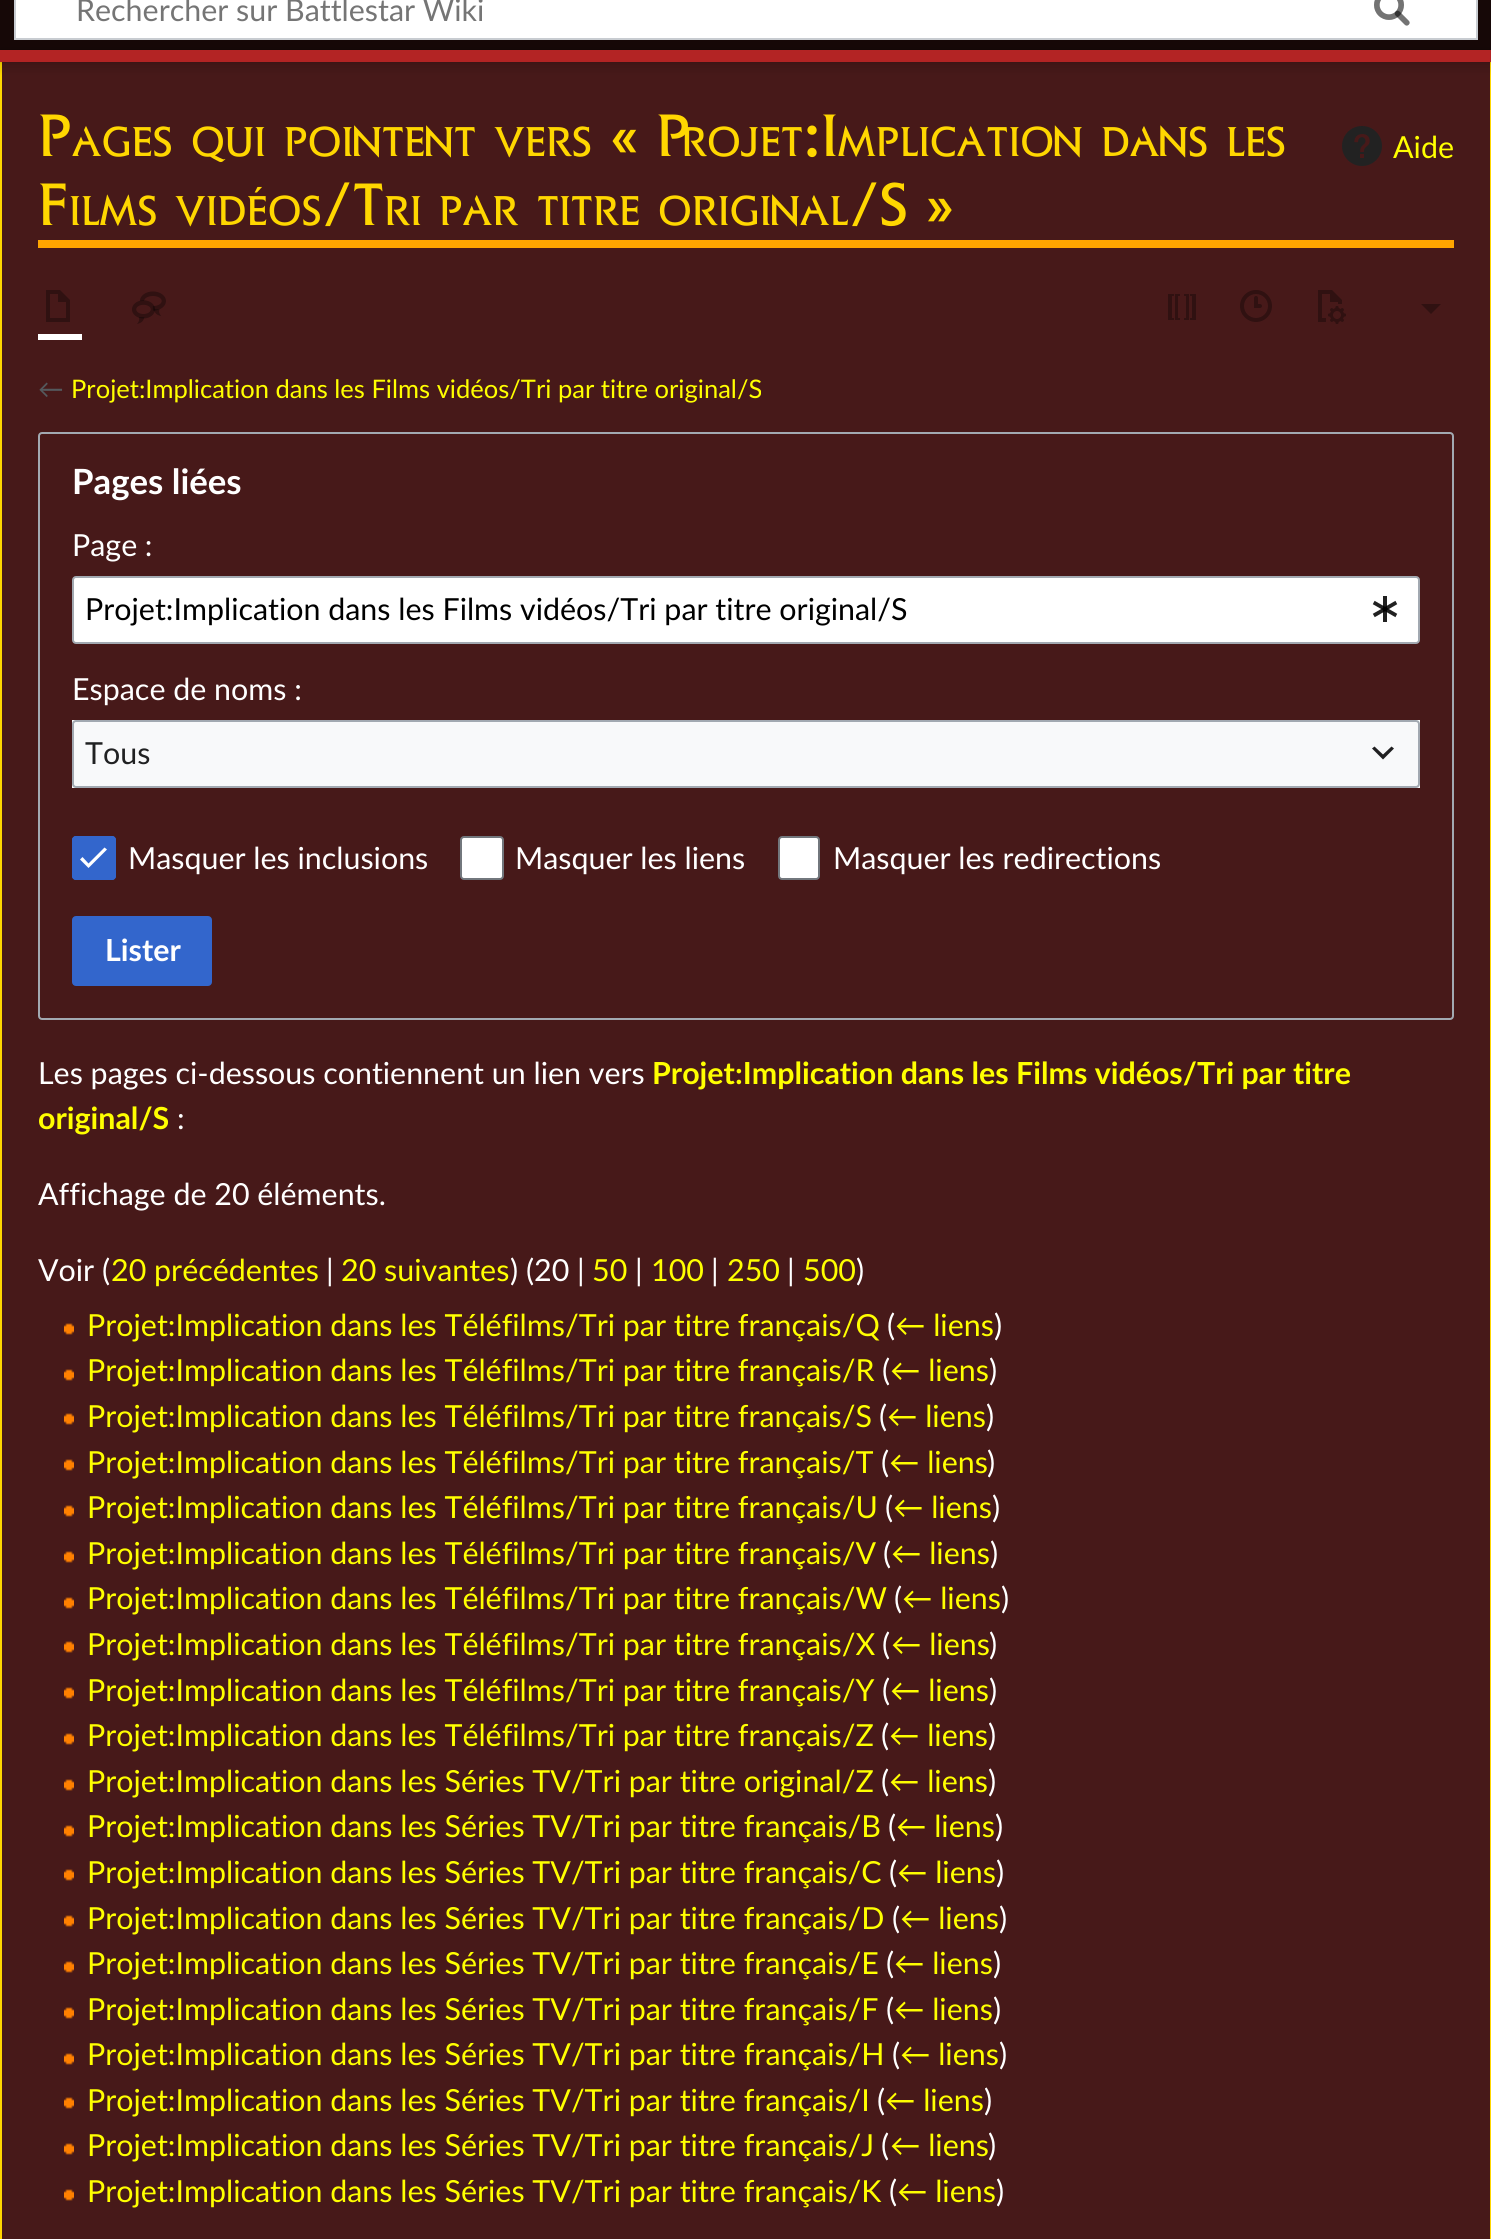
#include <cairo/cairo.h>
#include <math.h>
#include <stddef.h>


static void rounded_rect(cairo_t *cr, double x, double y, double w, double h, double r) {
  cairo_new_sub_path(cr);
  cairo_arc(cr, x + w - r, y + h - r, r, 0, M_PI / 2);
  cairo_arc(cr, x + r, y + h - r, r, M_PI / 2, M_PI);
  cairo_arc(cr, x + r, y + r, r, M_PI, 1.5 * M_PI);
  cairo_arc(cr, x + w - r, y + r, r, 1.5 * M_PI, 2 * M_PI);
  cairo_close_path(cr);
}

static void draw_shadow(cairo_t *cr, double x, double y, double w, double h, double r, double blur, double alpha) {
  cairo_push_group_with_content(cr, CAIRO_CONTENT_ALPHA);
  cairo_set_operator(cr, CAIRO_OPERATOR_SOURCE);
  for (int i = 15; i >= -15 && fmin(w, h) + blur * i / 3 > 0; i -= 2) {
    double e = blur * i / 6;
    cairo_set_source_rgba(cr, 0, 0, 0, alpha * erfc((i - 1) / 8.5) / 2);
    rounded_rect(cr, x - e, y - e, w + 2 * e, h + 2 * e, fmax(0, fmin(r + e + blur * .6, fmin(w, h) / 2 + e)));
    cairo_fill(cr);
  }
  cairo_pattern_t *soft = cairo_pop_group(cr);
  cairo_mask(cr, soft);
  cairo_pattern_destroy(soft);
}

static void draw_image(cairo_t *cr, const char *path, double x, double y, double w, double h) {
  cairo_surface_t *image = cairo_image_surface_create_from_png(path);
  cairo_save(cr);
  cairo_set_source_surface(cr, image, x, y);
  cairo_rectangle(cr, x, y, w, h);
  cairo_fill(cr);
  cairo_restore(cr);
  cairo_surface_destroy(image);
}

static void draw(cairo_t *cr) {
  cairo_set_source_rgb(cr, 22 / 255.0, 8 / 255.0, 7 / 255.0);
  cairo_paint(cr);
  cairo_set_source_rgb(cr, 1, 1, 1);
  cairo_rectangle(cr, 15, -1, 1462, 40);
  cairo_fill_preserve(cr);
  cairo_set_source_rgb(cr, 200 / 255.0, 204 / 255.0, 209 / 255.0);
  cairo_stroke(cr);
  draw_image(cr, "images/1.png", 1374, 0, 36, 26);
  draw_image(cr, "images/2.png", 1374, 0, 36, 26);
  cairo_set_source_rgb(cr, 71 / 255.0, 25 / 255.0, 25 / 255.0);
  cairo_rectangle(cr, 2, 62, 1488, 2177);
  cairo_fill(cr);
  cairo_rectangle(cr, 1, 51, 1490, 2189);
  cairo_set_source_rgb(cr, 1, 215 / 255.0, 0);
  cairo_stroke(cr);
  cairo_set_source_rgb(cr, 0, 0, 0);
  draw_shadow(cr, 0, 50, 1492, 12, 0, 2, 0.2);
  draw_shadow(cr, -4, 52, 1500, 20, 0, 3, 0.07);
  cairo_set_source_rgb(cr, 179 / 255.0, 36 / 255.0, 36 / 255.0);
  cairo_rectangle(cr, 0, 50, 1491, 12);
  cairo_fill(cr);
  cairo_set_source_rgb(cr, 1, 165 / 255.0, 0);
  cairo_rectangle(cr, 38, 240, 1416, 8);
  cairo_fill(cr);
  draw_image(cr, "images/3.png", 1342, 126, 40, 40);
  cairo_set_source_rgb(cr, 1, 1, 1);
  cairo_rectangle(cr, 38, 334, 44, 6);
  cairo_fill(cr);
  cairo_set_source_rgb(cr, 48 / 255.0, 17 / 255.0, 17 / 255.0);
  cairo_new_path(cr);
  cairo_move_to(cr, 46, 290);
  cairo_line_to(cr, 46, 322);
  cairo_line_to(cr, 70, 322);
  cairo_line_to(cr, 70, 300);
  cairo_line_to(cr, 60, 290);
  cairo_close_path(cr);
  cairo_move_to(cr, 50, 294);
  cairo_line_to(cr, 58, 294);
  cairo_line_to(cr, 58, 302);
  cairo_line_to(cr, 66, 302);
  cairo_line_to(cr, 66, 318);
  cairo_line_to(cr, 50, 318);
  cairo_close_path(cr);
  cairo_fill(cr);
  draw_image(cr, "images/4.png", 132, 291, 34, 33);
  draw_image(cr, "images/5.png", 1168, 294, 28, 26);
  draw_image(cr, "images/6.png", 1240, 290, 32, 32);
  draw_image(cr, "images/7.png", 1318, 290, 28, 34);
  cairo_new_path(cr);
  cairo_move_to(cr, 1441, 304);
  cairo_line_to(cr, 1431, 314);
  cairo_line_to(cr, 1421, 304);
  cairo_close_path(cr);
  cairo_fill(cr);
  rounded_rect(cr, 39, 433, 1414, 586, 3);
  cairo_set_source_rgb(cr, 162 / 255.0, 169 / 255.0, 177 / 255.0);
  cairo_stroke(cr);
  cairo_set_source_rgb(cr, 1, 1, 1);
  rounded_rect(cr, 73, 577, 1346, 66, 3);
  cairo_fill_preserve(cr);
  cairo_set_source_rgb(cr, 162 / 255.0, 169 / 255.0, 177 / 255.0);
  cairo_stroke(cr);
  draw_image(cr, "images/8.png", 1372, 596, 26, 26);
  cairo_set_source_rgb(cr, 248 / 255.0, 249 / 255.0, 250 / 255.0);
  cairo_rectangle(cr, 72, 720, 1348, 68);
  cairo_fill(cr);
  rounded_rect(cr, 73, 721, 1346, 66, 3);
  cairo_set_source_rgb(cr, 162 / 255.0, 169 / 255.0, 177 / 255.0);
  cairo_stroke(cr);
  cairo_set_source_rgb(cr, 32 / 255.0, 32 / 255.0, 33 / 255.0);
  cairo_new_path(cr);
  cairo_move_to(cr, 1391.5, 746.5);
  cairo_line_to(cr, 1383, 754.5);
  cairo_line_to(cr, 1374.5, 746.5);
  cairo_line_to(cr, 1372, 748.5);
  cairo_line_to(cr, 1383, 759.5);
  cairo_line_to(cr, 1394, 748.5);
  cairo_close_path(cr);
  cairo_fill(cr);
  cairo_set_source_rgb(cr, 51 / 255.0, 102 / 255.0, 204 / 255.0);
  rounded_rect(cr, 72, 836, 44, 44, 4);
  cairo_fill(cr);
  cairo_set_source_rgb(cr, 1, 1, 1);
  cairo_new_path(cr);
  cairo_move_to(cr, 88.5, 863.5);
  cairo_line_to(cr, 82.5, 857);
  cairo_line_to(cr, 80, 859.5);
  cairo_line_to(cr, 88.5, 868);
  cairo_line_to(cr, 107, 849.5);
  cairo_line_to(cr, 104.5, 847.5);
  cairo_close_path(cr);
  cairo_fill(cr);
  rounded_rect(cr, 73, 837, 42, 42, 3);
  cairo_set_source_rgb(cr, 51 / 255.0, 102 / 255.0, 204 / 255.0);
  cairo_stroke(cr);
  cairo_set_source_rgb(cr, 1, 1, 1);
  rounded_rect(cr, 461, 837, 42, 42, 3);
  cairo_fill_preserve(cr);
  cairo_set_source_rgb(cr, 114 / 255.0, 119 / 255.0, 125 / 255.0);
  cairo_stroke(cr);
  cairo_set_source_rgb(cr, 1, 1, 1);
  rounded_rect(cr, 779, 837, 40, 42, 3);
  cairo_fill_preserve(cr);
  cairo_set_source_rgb(cr, 114 / 255.0, 119 / 255.0, 125 / 255.0);
  cairo_stroke(cr);
  cairo_set_source_rgb(cr, 51 / 255.0, 102 / 255.0, 204 / 255.0);
  rounded_rect(cr, 73, 917, 138, 68, 3);
  cairo_fill_preserve(cr);
  cairo_stroke(cr);
  draw_image(cr, "images/9.png", 64, 1323, 10, 12);
  draw_image(cr, "images/9.png", 64, 1369, 10, 12);
  draw_image(cr, "images/9.png", 64, 1413, 10, 12);
  draw_image(cr, "images/9.png", 64, 1459, 10, 12);
  draw_image(cr, "images/9.png", 64, 1505, 10, 12);
  draw_image(cr, "images/9.png", 64, 1551, 10, 12);
  draw_image(cr, "images/9.png", 64, 1597, 10, 12);
  draw_image(cr, "images/9.png", 64, 1641, 10, 12);
  draw_image(cr, "images/9.png", 64, 1687, 10, 12);
  draw_image(cr, "images/9.png", 64, 1733, 10, 12);
  draw_image(cr, "images/9.png", 64, 1779, 10, 12);
  draw_image(cr, "images/9.png", 64, 1825, 10, 12);
  draw_image(cr, "images/9.png", 64, 1869, 10, 12);
  draw_image(cr, "images/9.png", 64, 1915, 10, 12);
  draw_image(cr, "images/9.png", 64, 1961, 10, 12);
  draw_image(cr, "images/9.png", 64, 2007, 10, 12);
  draw_image(cr, "images/9.png", 64, 2053, 10, 12);
  draw_image(cr, "images/9.png", 64, 2097, 10, 12);
  draw_image(cr, "images/9.png", 64, 2143, 10, 12);
  draw_image(cr, "images/9.png", 64, 2189, 10, 12);
  cairo_select_font_face(cr, "Lato", CAIRO_FONT_SLANT_NORMAL, CAIRO_FONT_WEIGHT_NORMAL);
  cairo_set_font_size(cr, 30.4);
  cairo_set_source_rgb(cr, 117 / 255.0, 117 / 255.0, 117 / 255.0);
  cairo_move_to(cr, 76, 21);
  cairo_show_text(cr, "Rechercher sur Battlestar Wiki");
  cairo_select_font_face(cr, "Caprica", CAIRO_FONT_SLANT_NORMAL, CAIRO_FONT_WEIGHT_NORMAL);
  cairo_set_font_size(cr, 61);
  cairo_set_source_rgb(cr, 1, 215 / 255.0, 0);
  cairo_move_to(cr, 38, 156);
  cairo_show_text(cr, "P");
  cairo_set_font_size(cr, 42.5);
  cairo_move_to(cr, 72, 156);
  cairo_show_text(cr, "AGES");
  cairo_move_to(cr, 191, 156);
  cairo_show_text(cr, "QUI");
  cairo_move_to(cr, 284, 156);
  cairo_show_text(cr, "POINTENT");
  cairo_move_to(cr, 494, 156);
  cairo_show_text(cr, "VERS");
  cairo_set_font_size(cr, 61);
  cairo_move_to(cr, 610, 156);
  cairo_show_text(cr, "« P");
  cairo_set_font_size(cr, 42.5);
  cairo_move_to(cr, 681, 156);
  cairo_show_text(cr, "ROJET");
  cairo_set_font_size(cr, 61);
  cairo_move_to(cr, 803, 156);
  cairo_show_text(cr, ":I");
  cairo_set_font_size(cr, 42.5);
  cairo_move_to(cr, 838, 156);
  cairo_show_text(cr, "MPLICATION");
  cairo_move_to(cr, 1101, 156);
  cairo_show_text(cr, "DANS");
  cairo_move_to(cr, 1226, 156);
  cairo_show_text(cr, "LES");
  cairo_set_font_size(cr, 61);
  cairo_move_to(cr, 38, 225);
  cairo_show_text(cr, "F");
  cairo_set_font_size(cr, 42.5);
  cairo_move_to(cr, 69, 225);
  cairo_show_text(cr, "ILMS");
  cairo_move_to(cr, 175, 225);
  cairo_show_text(cr, "VIDÉOS");
  cairo_set_font_size(cr, 61);
  cairo_move_to(cr, 322, 225);
  cairo_show_text(cr, "/T");
  cairo_set_font_size(cr, 42.5);
  cairo_move_to(cr, 384, 225);
  cairo_show_text(cr, "RI");
  cairo_move_to(cr, 439, 225);
  cairo_show_text(cr, "PAR");
  cairo_move_to(cr, 537, 225);
  cairo_show_text(cr, "TITRE");
  cairo_move_to(cr, 658, 225);
  cairo_show_text(cr, "ORIGINAL");
  cairo_set_font_size(cr, 61);
  cairo_move_to(cr, 849, 225);
  cairo_show_text(cr, "/S »");
  cairo_select_font_face(cr, "Lato", CAIRO_FONT_SLANT_NORMAL, CAIRO_FONT_WEIGHT_NORMAL);
  cairo_set_font_size(cr, 30.4);
  cairo_set_source_rgb(cr, 1, 1, 0);
  cairo_move_to(cr, 1393, 158);
  cairo_show_text(cr, "Aide");
  cairo_set_font_size(cr, 25.55);
  cairo_set_source_rgb(cr, 84 / 255.0, 89 / 255.0, 93 / 255.0);
  cairo_move_to(cr, 38, 398);
  cairo_show_text(cr, "←");
  cairo_set_source_rgb(cr, 1, 1, 0);
  cairo_move_to(cr, 71, 398);
  cairo_show_text(cr, "Projet:Implication dans les Films vidéos/Tri par titre original/S");
  cairo_select_font_face(cr, "Lato", CAIRO_FONT_SLANT_NORMAL, CAIRO_FONT_WEIGHT_BOLD);
  cairo_set_font_size(cr, 34.75);
  cairo_set_source_rgb(cr, 1, 1, 1);
  cairo_move_to(cr, 72, 494);
  cairo_show_text(cr, "Pages liées");
  cairo_select_font_face(cr, "Lato", CAIRO_FONT_SLANT_NORMAL, CAIRO_FONT_WEIGHT_NORMAL);
  cairo_set_font_size(cr, 30.4);
  cairo_move_to(cr, 72, 556);
  cairo_show_text(cr, "Page :");
  cairo_set_source_rgb(cr, 0, 0, 0);
  cairo_move_to(cr, 85, 620);
  cairo_show_text(cr, "Projet:Implication dans les Films vidéos/Tri par titre original/S");
  cairo_set_source_rgb(cr, 1, 1, 1);
  cairo_move_to(cr, 72, 700);
  cairo_show_text(cr, "Espace de noms :");
  cairo_set_source_rgb(cr, 32 / 255.0, 33 / 255.0, 34 / 255.0);
  cairo_move_to(cr, 85, 764);
  cairo_show_text(cr, "Tous");
  cairo_set_source_rgb(cr, 1, 1, 1);
  cairo_move_to(cr, 128, 869);
  cairo_show_text(cr, "Masquer les inclusions");
  cairo_move_to(cr, 515, 869);
  cairo_show_text(cr, "Masquer les liens");
  cairo_move_to(cr, 833, 869);
  cairo_show_text(cr, "Masquer les redirections");
  cairo_select_font_face(cr, "Lato", CAIRO_FONT_SLANT_NORMAL, CAIRO_FONT_WEIGHT_BOLD);
  cairo_move_to(cr, 105, 961);
  cairo_show_text(cr, "Lister");
  cairo_select_font_face(cr, "Lato", CAIRO_FONT_SLANT_NORMAL, CAIRO_FONT_WEIGHT_NORMAL);
  cairo_move_to(cr, 38, 1084);
  cairo_show_text(cr, "Les pages ci-dessous contiennent un lien vers");
  cairo_select_font_face(cr, "Lato", CAIRO_FONT_SLANT_NORMAL, CAIRO_FONT_WEIGHT_BOLD);
  cairo_set_source_rgb(cr, 1, 1, 0);
  cairo_move_to(cr, 652, 1084);
  cairo_show_text(cr, "Projet:Implication dans les Films vidéos/Tri par titre");
  cairo_move_to(cr, 38, 1129);
  cairo_show_text(cr, "original/S");
  cairo_select_font_face(cr, "Lato", CAIRO_FONT_SLANT_NORMAL, CAIRO_FONT_WEIGHT_NORMAL);
  cairo_set_source_rgb(cr, 1, 1, 1);
  cairo_move_to(cr, 177, 1129);
  cairo_show_text(cr, ":");
  cairo_move_to(cr, 38, 1205);
  cairo_show_text(cr, "Affichage de 20 éléments.");
  cairo_move_to(cr, 38, 1281);
  cairo_show_text(cr, "Voir (");
  cairo_set_source_rgb(cr, 1, 1, 0);
  cairo_move_to(cr, 111, 1281);
  cairo_show_text(cr, "20 précédentes");
  cairo_set_source_rgb(cr, 1, 1, 1);
  cairo_move_to(cr, 326, 1281);
  cairo_show_text(cr, "|");
  cairo_set_source_rgb(cr, 1, 1, 0);
  cairo_move_to(cr, 341, 1281);
  cairo_show_text(cr, "20 suivantes");
  cairo_set_source_rgb(cr, 1, 1, 1);
  cairo_move_to(cr, 510, 1281);
  cairo_show_text(cr, ") (20 |");
  cairo_set_source_rgb(cr, 1, 1, 0);
  cairo_move_to(cr, 592, 1281);
  cairo_show_text(cr, "50");
  cairo_set_source_rgb(cr, 1, 1, 1);
  cairo_move_to(cr, 635, 1281);
  cairo_show_text(cr, "|");
  cairo_set_source_rgb(cr, 1, 1, 0);
  cairo_move_to(cr, 651, 1281);
  cairo_show_text(cr, "100");
  cairo_set_source_rgb(cr, 1, 1, 1);
  cairo_move_to(cr, 711, 1281);
  cairo_show_text(cr, "|");
  cairo_set_source_rgb(cr, 1, 1, 0);
  cairo_move_to(cr, 727, 1281);
  cairo_show_text(cr, "250");
  cairo_set_source_rgb(cr, 1, 1, 1);
  cairo_move_to(cr, 787, 1281);
  cairo_show_text(cr, "|");
  cairo_set_source_rgb(cr, 1, 1, 0);
  cairo_move_to(cr, 803, 1281);
  cairo_show_text(cr, "500");
  cairo_set_source_rgb(cr, 1, 1, 1);
  cairo_move_to(cr, 856, 1281);
  cairo_show_text(cr, ")");
  cairo_set_source_rgb(cr, 1, 1, 0);
  cairo_move_to(cr, 87, 1336);
  cairo_show_text(cr, "Projet:Implication dans les Téléfilms/Tri par titre français/Q");
  cairo_set_source_rgb(cr, 1, 1, 1);
  cairo_move_to(cr, 887, 1336);
  cairo_show_text(cr, "(");
  cairo_set_source_rgb(cr, 1, 1, 0);
  cairo_move_to(cr, 895, 1336);
  cairo_show_text(cr, "← liens");
  cairo_set_source_rgb(cr, 1, 1, 1);
  cairo_move_to(cr, 994, 1336);
  cairo_show_text(cr, ")");
  cairo_set_source_rgb(cr, 1, 1, 0);
  cairo_move_to(cr, 87, 1381);
  cairo_show_text(cr, "Projet:Implication dans les Téléfilms/Tri par titre français/R");
  cairo_set_source_rgb(cr, 1, 1, 1);
  cairo_move_to(cr, 882, 1381);
  cairo_show_text(cr, "(");
  cairo_set_source_rgb(cr, 1, 1, 0);
  cairo_move_to(cr, 890, 1381);
  cairo_show_text(cr, "← liens");
  cairo_set_source_rgb(cr, 1, 1, 1);
  cairo_move_to(cr, 989, 1381);
  cairo_show_text(cr, ")");
  cairo_set_source_rgb(cr, 1, 1, 0);
  cairo_move_to(cr, 87, 1427);
  cairo_show_text(cr, "Projet:Implication dans les Téléfilms/Tri par titre français/S");
  cairo_set_source_rgb(cr, 1, 1, 1);
  cairo_move_to(cr, 879, 1427);
  cairo_show_text(cr, "(");
  cairo_set_source_rgb(cr, 1, 1, 0);
  cairo_move_to(cr, 887, 1427);
  cairo_show_text(cr, "← liens");
  cairo_set_source_rgb(cr, 1, 1, 1);
  cairo_move_to(cr, 986, 1427);
  cairo_show_text(cr, ")");
  cairo_set_source_rgb(cr, 1, 1, 0);
  cairo_move_to(cr, 87, 1473);
  cairo_show_text(cr, "Projet:Implication dans les Téléfilms/Tri par titre français/T");
  cairo_set_source_rgb(cr, 1, 1, 1);
  cairo_move_to(cr, 881, 1473);
  cairo_show_text(cr, "(");
  cairo_set_source_rgb(cr, 1, 1, 0);
  cairo_move_to(cr, 889, 1473);
  cairo_show_text(cr, "← liens");
  cairo_set_source_rgb(cr, 1, 1, 1);
  cairo_move_to(cr, 987, 1473);
  cairo_show_text(cr, ")");
  cairo_set_source_rgb(cr, 1, 1, 0);
  cairo_move_to(cr, 87, 1518);
  cairo_show_text(cr, "Projet:Implication dans les Téléfilms/Tri par titre français/U");
  cairo_set_source_rgb(cr, 1, 1, 1);
  cairo_move_to(cr, 885, 1518);
  cairo_show_text(cr, "(");
  cairo_set_source_rgb(cr, 1, 1, 0);
  cairo_move_to(cr, 893, 1518);
  cairo_show_text(cr, "← liens");
  cairo_set_source_rgb(cr, 1, 1, 1);
  cairo_move_to(cr, 992, 1518);
  cairo_show_text(cr, ")");
  cairo_set_source_rgb(cr, 1, 1, 0);
  cairo_move_to(cr, 87, 1564);
  cairo_show_text(cr, "Projet:Implication dans les Téléfilms/Tri par titre français/V");
  cairo_set_source_rgb(cr, 1, 1, 1);
  cairo_move_to(cr, 883, 1564);
  cairo_show_text(cr, "(");
  cairo_set_source_rgb(cr, 1, 1, 0);
  cairo_move_to(cr, 891, 1564);
  cairo_show_text(cr, "← liens");
  cairo_set_source_rgb(cr, 1, 1, 1);
  cairo_move_to(cr, 990, 1564);
  cairo_show_text(cr, ")");
  cairo_set_source_rgb(cr, 1, 1, 0);
  cairo_move_to(cr, 87, 1609);
  cairo_show_text(cr, "Projet:Implication dans les Téléfilms/Tri par titre français/W");
  cairo_set_source_rgb(cr, 1, 1, 1);
  cairo_move_to(cr, 894, 1609);
  cairo_show_text(cr, "(");
  cairo_set_source_rgb(cr, 1, 1, 0);
  cairo_move_to(cr, 902, 1609);
  cairo_show_text(cr, "← liens");
  cairo_set_source_rgb(cr, 1, 1, 1);
  cairo_move_to(cr, 1001, 1609);
  cairo_show_text(cr, ")");
  cairo_set_source_rgb(cr, 1, 1, 0);
  cairo_move_to(cr, 87, 1655);
  cairo_show_text(cr, "Projet:Implication dans les Téléfilms/Tri par titre français/X");
  cairo_set_source_rgb(cr, 1, 1, 1);
  cairo_move_to(cr, 882, 1655);
  cairo_show_text(cr, "(");
  cairo_set_source_rgb(cr, 1, 1, 0);
  cairo_move_to(cr, 891, 1655);
  cairo_show_text(cr, "← liens");
  cairo_set_source_rgb(cr, 1, 1, 1);
  cairo_move_to(cr, 989, 1655);
  cairo_show_text(cr, ")");
  cairo_set_source_rgb(cr, 1, 1, 0);
  cairo_move_to(cr, 87, 1701);
  cairo_show_text(cr, "Projet:Implication dans les Téléfilms/Tri par titre français/Y");
  cairo_set_source_rgb(cr, 1, 1, 1);
  cairo_move_to(cr, 882, 1701);
  cairo_show_text(cr, "(");
  cairo_set_source_rgb(cr, 1, 1, 0);
  cairo_move_to(cr, 890, 1701);
  cairo_show_text(cr, "← liens");
  cairo_set_source_rgb(cr, 1, 1, 1);
  cairo_move_to(cr, 989, 1701);
  cairo_show_text(cr, ")");
  cairo_set_source_rgb(cr, 1, 1, 0);
  cairo_move_to(cr, 87, 1746);
  cairo_show_text(cr, "Projet:Implication dans les Téléfilms/Tri par titre français/Z");
  cairo_set_source_rgb(cr, 1, 1, 1);
  cairo_move_to(cr, 881, 1746);
  cairo_show_text(cr, "(");
  cairo_set_source_rgb(cr, 1, 1, 0);
  cairo_move_to(cr, 889, 1746);
  cairo_show_text(cr, "← liens");
  cairo_set_source_rgb(cr, 1, 1, 1);
  cairo_move_to(cr, 988, 1746);
  cairo_show_text(cr, ")");
  cairo_set_source_rgb(cr, 1, 1, 0);
  cairo_move_to(cr, 87, 1792);
  cairo_show_text(cr, "Projet:Implication dans les Séries TV/Tri par titre original/Z");
  cairo_set_source_rgb(cr, 1, 1, 1);
  cairo_move_to(cr, 881, 1792);
  cairo_show_text(cr, "(");
  cairo_set_source_rgb(cr, 1, 1, 0);
  cairo_move_to(cr, 889, 1792);
  cairo_show_text(cr, "← liens");
  cairo_set_source_rgb(cr, 1, 1, 1);
  cairo_move_to(cr, 988, 1792);
  cairo_show_text(cr, ")");
  cairo_set_source_rgb(cr, 1, 1, 0);
  cairo_move_to(cr, 87, 1837);
  cairo_show_text(cr, "Projet:Implication dans les Séries TV/Tri par titre français/B");
  cairo_set_source_rgb(cr, 1, 1, 1);
  cairo_move_to(cr, 888, 1837);
  cairo_show_text(cr, "(");
  cairo_set_source_rgb(cr, 1, 1, 0);
  cairo_move_to(cr, 896, 1837);
  cairo_show_text(cr, "← liens");
  cairo_set_source_rgb(cr, 1, 1, 1);
  cairo_move_to(cr, 995, 1837);
  cairo_show_text(cr, ")");
  cairo_set_source_rgb(cr, 1, 1, 0);
  cairo_move_to(cr, 87, 1883);
  cairo_show_text(cr, "Projet:Implication dans les Séries TV/Tri par titre français/C");
  cairo_set_source_rgb(cr, 1, 1, 1);
  cairo_move_to(cr, 889, 1883);
  cairo_show_text(cr, "(");
  cairo_set_source_rgb(cr, 1, 1, 0);
  cairo_move_to(cr, 897, 1883);
  cairo_show_text(cr, "← liens");
  cairo_set_source_rgb(cr, 1, 1, 1);
  cairo_move_to(cr, 996, 1883);
  cairo_show_text(cr, ")");
  cairo_set_source_rgb(cr, 1, 1, 0);
  cairo_move_to(cr, 87, 1929);
  cairo_show_text(cr, "Projet:Implication dans les Séries TV/Tri par titre français/D");
  cairo_set_source_rgb(cr, 1, 1, 1);
  cairo_move_to(cr, 892, 1929);
  cairo_show_text(cr, "(");
  cairo_set_source_rgb(cr, 1, 1, 0);
  cairo_move_to(cr, 900, 1929);
  cairo_show_text(cr, "← liens");
  cairo_set_source_rgb(cr, 1, 1, 1);
  cairo_move_to(cr, 999, 1929);
  cairo_show_text(cr, ")");
  cairo_set_source_rgb(cr, 1, 1, 0);
  cairo_move_to(cr, 87, 1974);
  cairo_show_text(cr, "Projet:Implication dans les Séries TV/Tri par titre français/E");
  cairo_set_source_rgb(cr, 1, 1, 1);
  cairo_move_to(cr, 886, 1974);
  cairo_show_text(cr, "(");
  cairo_set_source_rgb(cr, 1, 1, 0);
  cairo_move_to(cr, 894, 1974);
  cairo_show_text(cr, "← liens");
  cairo_set_source_rgb(cr, 1, 1, 1);
  cairo_move_to(cr, 993, 1974);
  cairo_show_text(cr, ")");
  cairo_set_source_rgb(cr, 1, 1, 0);
  cairo_move_to(cr, 87, 2020);
  cairo_show_text(cr, "Projet:Implication dans les Séries TV/Tri par titre français/F");
  cairo_set_source_rgb(cr, 1, 1, 1);
  cairo_move_to(cr, 886, 2020);
  cairo_show_text(cr, "(");
  cairo_set_source_rgb(cr, 1, 1, 0);
  cairo_move_to(cr, 894, 2020);
  cairo_show_text(cr, "← liens");
  cairo_set_source_rgb(cr, 1, 1, 1);
  cairo_move_to(cr, 993, 2020);
  cairo_show_text(cr, ")");
  cairo_set_source_rgb(cr, 1, 1, 0);
  cairo_move_to(cr, 87, 2065);
  cairo_show_text(cr, "Projet:Implication dans les Séries TV/Tri par titre français/H");
  cairo_set_source_rgb(cr, 1, 1, 1);
  cairo_move_to(cr, 892, 2065);
  cairo_show_text(cr, "(");
  cairo_set_source_rgb(cr, 1, 1, 0);
  cairo_move_to(cr, 900, 2065);
  cairo_show_text(cr, "← liens");
  cairo_set_source_rgb(cr, 1, 1, 1);
  cairo_move_to(cr, 999, 2065);
  cairo_show_text(cr, ")");
  cairo_set_source_rgb(cr, 1, 1, 0);
  cairo_move_to(cr, 87, 2111);
  cairo_show_text(cr, "Projet:Implication dans les Séries TV/Tri par titre français/I");
  cairo_set_source_rgb(cr, 1, 1, 1);
  cairo_move_to(cr, 877, 2111);
  cairo_show_text(cr, "(");
  cairo_set_source_rgb(cr, 1, 1, 0);
  cairo_move_to(cr, 885, 2111);
  cairo_show_text(cr, "← liens");
  cairo_set_source_rgb(cr, 1, 1, 1);
  cairo_move_to(cr, 984, 2111);
  cairo_show_text(cr, ")");
  cairo_set_source_rgb(cr, 1, 1, 0);
  cairo_move_to(cr, 87, 2156);
  cairo_show_text(cr, "Projet:Implication dans les Séries TV/Tri par titre français/J");
  cairo_set_source_rgb(cr, 1, 1, 1);
  cairo_move_to(cr, 881, 2156);
  cairo_show_text(cr, "(");
  cairo_set_source_rgb(cr, 1, 1, 0);
  cairo_move_to(cr, 890, 2156);
  cairo_show_text(cr, "← liens");
  cairo_set_source_rgb(cr, 1, 1, 1);
  cairo_move_to(cr, 988, 2156);
  cairo_show_text(cr, ")");
  cairo_set_source_rgb(cr, 1, 1, 0);
  cairo_move_to(cr, 87, 2202);
  cairo_show_text(cr, "Projet:Implication dans les Séries TV/Tri par titre français/K");
  cairo_set_source_rgb(cr, 1, 1, 1);
  cairo_move_to(cr, 889, 2202);
  cairo_show_text(cr, "(");
  cairo_set_source_rgb(cr, 1, 1, 0);
  cairo_move_to(cr, 897, 2202);
  cairo_show_text(cr, "← liens");
  cairo_set_source_rgb(cr, 1, 1, 1);
  cairo_move_to(cr, 996, 2202);
  cairo_show_text(cr, ")");
}

int main(void) {
  cairo_surface_t *surface = cairo_image_surface_create(CAIRO_FORMAT_RGB24, 1491, 2239);
  cairo_t *cr = cairo_create(surface);
  cairo_font_options_t *options = cairo_font_options_create();
  cairo_font_options_set_hint_metrics(options, CAIRO_HINT_METRICS_OFF);
  cairo_font_options_set_hint_style(options, CAIRO_HINT_STYLE_NONE);
  cairo_set_font_options(cr, options);
  cairo_set_miter_limit(cr, 4);
  draw(cr);
  cairo_surface_write_to_png(surface, "out.png");
  cairo_font_options_destroy(options);
  cairo_destroy(cr);
  cairo_surface_destroy(surface);
  return 0;
}
